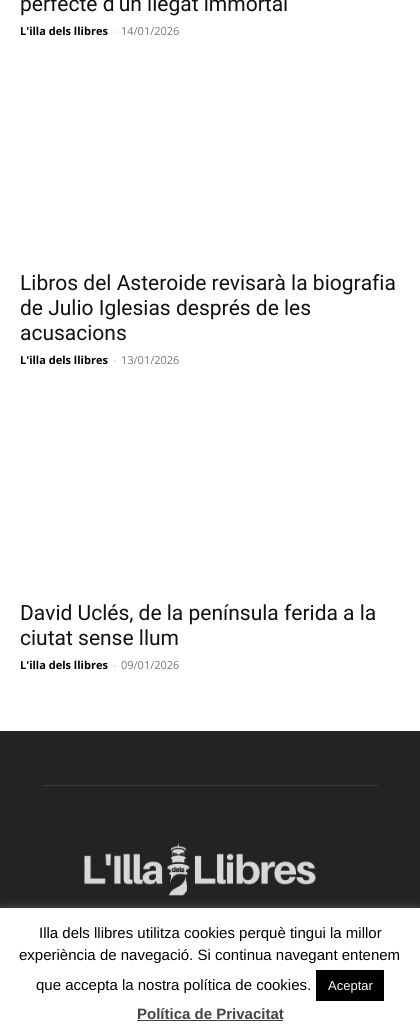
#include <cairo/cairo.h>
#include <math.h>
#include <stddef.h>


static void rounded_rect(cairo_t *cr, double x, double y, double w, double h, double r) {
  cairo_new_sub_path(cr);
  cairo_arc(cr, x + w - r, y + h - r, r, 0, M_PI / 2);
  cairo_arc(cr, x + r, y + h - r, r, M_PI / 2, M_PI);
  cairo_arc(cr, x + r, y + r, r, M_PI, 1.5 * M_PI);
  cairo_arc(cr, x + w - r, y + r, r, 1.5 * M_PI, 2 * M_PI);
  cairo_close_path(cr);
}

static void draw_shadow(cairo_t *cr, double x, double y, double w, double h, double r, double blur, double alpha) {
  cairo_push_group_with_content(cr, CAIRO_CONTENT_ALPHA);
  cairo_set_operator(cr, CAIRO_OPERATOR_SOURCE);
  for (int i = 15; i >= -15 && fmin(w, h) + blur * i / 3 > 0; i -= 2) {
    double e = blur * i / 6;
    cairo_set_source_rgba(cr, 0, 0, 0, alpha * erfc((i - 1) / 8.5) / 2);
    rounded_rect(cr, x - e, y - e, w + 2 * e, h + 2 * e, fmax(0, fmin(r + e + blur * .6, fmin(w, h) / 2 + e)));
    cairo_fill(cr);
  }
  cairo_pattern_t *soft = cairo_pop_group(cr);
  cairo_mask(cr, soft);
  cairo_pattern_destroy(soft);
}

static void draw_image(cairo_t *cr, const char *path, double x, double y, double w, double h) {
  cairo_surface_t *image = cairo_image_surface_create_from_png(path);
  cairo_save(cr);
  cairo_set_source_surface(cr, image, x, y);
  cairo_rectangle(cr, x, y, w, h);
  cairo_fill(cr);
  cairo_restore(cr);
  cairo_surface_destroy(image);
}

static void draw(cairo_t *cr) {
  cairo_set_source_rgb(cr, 1, 1, 1);
  cairo_paint(cr);
  cairo_set_source_rgb(cr, 35 / 255.0, 35 / 255.0, 35 / 255.0);
  cairo_rectangle(cr, 0, 731, 420, 177);
  cairo_fill(cr);
  cairo_set_source_rgb(cr, 57 / 255.0, 57 / 255.0, 57 / 255.0);
  cairo_rectangle(cr, 42, 785, 336, 1);
  cairo_fill(cr);
  draw_image(cr, "images/1.png", 84, 842, 232, 54);
  cairo_set_source_rgb(cr, 172 / 255.0, 171 / 255.0, 171 / 255.0);
  draw_shadow(cr, 0, 907, 420, 128, 0, 5, 0.3);
  cairo_set_source_rgb(cr, 1, 1, 1);
  cairo_rectangle(cr, 0, 908, 420, 128);
  cairo_fill(cr);
  cairo_set_source_rgb(cr, 0, 0, 0);
  cairo_rectangle(cr, 316, 970, 68, 31);
  cairo_fill(cr);
  cairo_set_source_rgb(cr, 68 / 255.0, 68 / 255.0, 68 / 255.0);
  cairo_rectangle(cr, 137, 1020, 146, 1);
  cairo_fill(cr);
  cairo_select_font_face(cr, "Roboto", CAIRO_FONT_SLANT_NORMAL, CAIRO_FONT_WEIGHT_NORMAL);
  cairo_set_font_size(cr, 21);
  cairo_set_source_rgb(cr, 17 / 255.0, 17 / 255.0, 17 / 255.0);
  cairo_move_to(cr, 20, 11);
  cairo_show_text(cr, "perfecte d’un llegat immortal");
  cairo_select_font_face(cr, "Open Sans", CAIRO_FONT_SLANT_NORMAL, CAIRO_FONT_WEIGHT_BOLD);
  cairo_set_font_size(cr, 11);
  cairo_set_source_rgb(cr, 0, 0, 0);
  cairo_move_to(cr, 20, 35);
  cairo_show_text(cr, "L'illa dels llibres");
  cairo_select_font_face(cr, "Open Sans", CAIRO_FONT_SLANT_NORMAL, CAIRO_FONT_WEIGHT_NORMAL);
  cairo_set_source_rgb(cr, 204 / 255.0, 204 / 255.0, 204 / 255.0);
  cairo_move_to(cr, 113, 35);
  cairo_show_text(cr, "-");
  cairo_set_source_rgb(cr, 118 / 255.0, 118 / 255.0, 118 / 255.0);
  cairo_move_to(cr, 121, 35);
  cairo_show_text(cr, "14/01/2026");
  cairo_select_font_face(cr, "Roboto", CAIRO_FONT_SLANT_NORMAL, CAIRO_FONT_WEIGHT_NORMAL);
  cairo_set_font_size(cr, 21);
  cairo_set_source_rgb(cr, 17 / 255.0, 17 / 255.0, 17 / 255.0);
  cairo_move_to(cr, 20, 290);
  cairo_show_text(cr, "Libros del Asteroide revisarà la biografia");
  cairo_move_to(cr, 20, 315);
  cairo_show_text(cr, "de Julio Iglesias després de les");
  cairo_move_to(cr, 20, 340);
  cairo_show_text(cr, "acusacions");
  cairo_select_font_face(cr, "Open Sans", CAIRO_FONT_SLANT_NORMAL, CAIRO_FONT_WEIGHT_BOLD);
  cairo_set_font_size(cr, 11);
  cairo_set_source_rgb(cr, 0, 0, 0);
  cairo_move_to(cr, 20, 364);
  cairo_show_text(cr, "L'illa dels llibres");
  cairo_select_font_face(cr, "Open Sans", CAIRO_FONT_SLANT_NORMAL, CAIRO_FONT_WEIGHT_NORMAL);
  cairo_set_source_rgb(cr, 204 / 255.0, 204 / 255.0, 204 / 255.0);
  cairo_move_to(cr, 113, 364);
  cairo_show_text(cr, "-");
  cairo_set_source_rgb(cr, 118 / 255.0, 118 / 255.0, 118 / 255.0);
  cairo_move_to(cr, 121, 364);
  cairo_show_text(cr, "13/01/2026");
  cairo_select_font_face(cr, "Roboto", CAIRO_FONT_SLANT_NORMAL, CAIRO_FONT_WEIGHT_NORMAL);
  cairo_set_font_size(cr, 21);
  cairo_set_source_rgb(cr, 17 / 255.0, 17 / 255.0, 17 / 255.0);
  cairo_move_to(cr, 20, 620);
  cairo_show_text(cr, "David Uclés, de la península ferida a la");
  cairo_move_to(cr, 20, 645);
  cairo_show_text(cr, "ciutat sense llum");
  cairo_select_font_face(cr, "Open Sans", CAIRO_FONT_SLANT_NORMAL, CAIRO_FONT_WEIGHT_BOLD);
  cairo_set_font_size(cr, 11);
  cairo_set_source_rgb(cr, 0, 0, 0);
  cairo_move_to(cr, 20, 669);
  cairo_show_text(cr, "L'illa dels llibres");
  cairo_select_font_face(cr, "Open Sans", CAIRO_FONT_SLANT_NORMAL, CAIRO_FONT_WEIGHT_NORMAL);
  cairo_set_source_rgb(cr, 204 / 255.0, 204 / 255.0, 204 / 255.0);
  cairo_move_to(cr, 113, 669);
  cairo_show_text(cr, "-");
  cairo_set_source_rgb(cr, 118 / 255.0, 118 / 255.0, 118 / 255.0);
  cairo_move_to(cr, 121, 669);
  cairo_show_text(cr, "09/01/2026");
  cairo_select_font_face(cr, "Liberation Sans", CAIRO_FONT_SLANT_NORMAL, CAIRO_FONT_WEIGHT_NORMAL);
  cairo_set_font_size(cr, 15);
  cairo_set_source_rgb(cr, 0, 0, 0);
  cairo_move_to(cr, 39, 938);
  cairo_show_text(cr, "Illa dels llibres utilitza cookies perquè tingui la millor");
  cairo_move_to(cr, 19, 960);
  cairo_show_text(cr, "experiència de navegació. Si continua navegant entenem");
  cairo_move_to(cr, 36, 990);
  cairo_show_text(cr, "que accepta la nostra política de cookies.");
  cairo_set_font_size(cr, 13);
  cairo_set_source_rgb(cr, 1, 1, 1);
  cairo_move_to(cr, 328, 990);
  cairo_show_text(cr, "Aceptar");
  cairo_select_font_face(cr, "Liberation Sans", CAIRO_FONT_SLANT_NORMAL, CAIRO_FONT_WEIGHT_BOLD);
  cairo_set_font_size(cr, 15);
  cairo_set_source_rgb(cr, 68 / 255.0, 68 / 255.0, 68 / 255.0);
  cairo_move_to(cr, 137, 1019);
  cairo_show_text(cr, "Política de Privacitat");
}

int main(void) {
  cairo_surface_t *surface = cairo_image_surface_create(CAIRO_FORMAT_RGB24, 420, 1036);
  cairo_t *cr = cairo_create(surface);
  cairo_font_options_t *options = cairo_font_options_create();
  cairo_font_options_set_hint_metrics(options, CAIRO_HINT_METRICS_OFF);
  cairo_font_options_set_hint_style(options, CAIRO_HINT_STYLE_NONE);
  cairo_set_font_options(cr, options);
  cairo_set_miter_limit(cr, 4);
  draw(cr);
  cairo_surface_write_to_png(surface, "out.png");
  cairo_font_options_destroy(options);
  cairo_destroy(cr);
  cairo_surface_destroy(surface);
  return 0;
}
